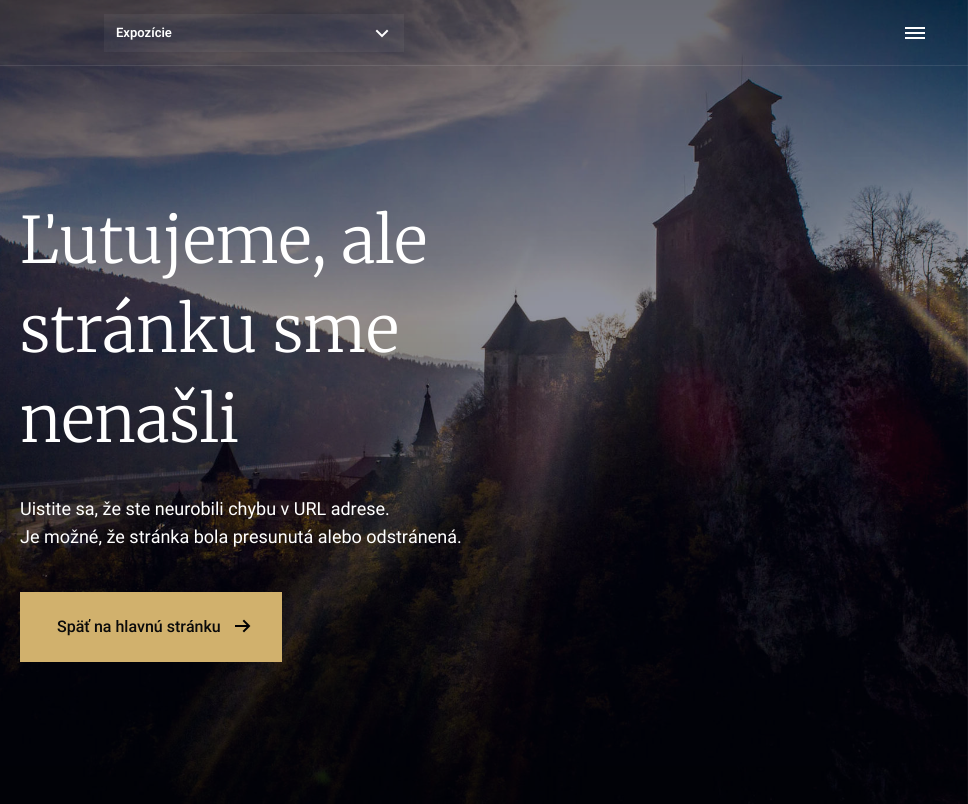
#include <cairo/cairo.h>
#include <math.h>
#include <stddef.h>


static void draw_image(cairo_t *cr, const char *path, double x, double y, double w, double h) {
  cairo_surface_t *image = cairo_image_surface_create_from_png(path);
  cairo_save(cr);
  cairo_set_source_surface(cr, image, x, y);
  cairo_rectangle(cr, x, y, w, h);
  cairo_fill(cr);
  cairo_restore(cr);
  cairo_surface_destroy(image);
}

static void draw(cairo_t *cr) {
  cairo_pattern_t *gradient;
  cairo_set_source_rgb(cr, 1, 1, 1);
  cairo_paint(cr);
  draw_image(cr, "images/1.png", 0, 0, 968, 804);
  gradient = cairo_pattern_create_linear(484, 0, 484, 804);
  cairo_pattern_add_color_stop_rgba(gradient, 0, 0, 0, 0, 0.3);
  cairo_pattern_add_color_stop_rgba(gradient, 0.39, 0, 0, 0, 0.05);
  cairo_pattern_add_color_stop_rgba(gradient, 1, 0, 0, 0, 0.5);
  cairo_set_source(cr, gradient);
  cairo_pattern_destroy(gradient);
  cairo_rectangle(cr, 0, 0, 968, 804);
  cairo_fill(cr);
  cairo_set_source_rgba(cr, 1, 1, 1, 0.1);
  cairo_rectangle(cr, 0, 65, 968, 1);
  cairo_fill(cr);
  cairo_set_source_rgba(cr, 1, 1, 1, 0.05);
  cairo_rectangle(cr, 104, 14, 300, 38);
  cairo_fill(cr);
  cairo_new_path(cr);
  cairo_move_to(cr, 387, 31);
  cairo_line_to(cr, 382, 36);
  cairo_line_to(cr, 377, 31);
  cairo_set_source_rgb(cr, 1, 1, 1);
  cairo_set_line_cap(cr, CAIRO_LINE_CAP_SQUARE);
  cairo_stroke(cr);
  cairo_rectangle(cr, 905, 37, 20, 2);
  cairo_fill(cr);
  cairo_rectangle(cr, 905, 32, 20, 2);
  cairo_fill(cr);
  cairo_rectangle(cr, 905, 27, 20, 2);
  cairo_fill(cr);
  cairo_set_source_rgb(cr, 209 / 255.0, 177 / 255.0, 109 / 255.0);
  cairo_rectangle(cr, 20, 592, 262, 70);
  cairo_fill(cr);
  cairo_set_source_rgb(cr, 0, 0, 0);
  cairo_rectangle(cr, 235, 625, 14, 2);
  cairo_fill(cr);
  cairo_new_path(cr);
  cairo_move_to(cr, 244, 621);
  cairo_line_to(cr, 249, 626);
  cairo_line_to(cr, 244, 631);
  cairo_stroke(cr);
  cairo_select_font_face(cr, "Roboto SemiBold", CAIRO_FONT_SLANT_NORMAL, CAIRO_FONT_WEIGHT_NORMAL);
  cairo_set_font_size(cr, 13);
  cairo_set_source_rgb(cr, 1, 1, 1);
  cairo_move_to(cr, 116, 37);
  cairo_show_text(cr, "Expozície");
  cairo_select_font_face(cr, "Merriweather Light", CAIRO_FONT_SLANT_NORMAL, CAIRO_FONT_WEIGHT_NORMAL);
  cairo_set_font_size(cr, 64);
  cairo_move_to(cr, 20, 263);
  cairo_show_text(cr, "Ľutujeme, ale");
  cairo_move_to(cr, 20, 352);
  cairo_show_text(cr, "stránku sme");
  cairo_move_to(cr, 20, 442);
  cairo_show_text(cr, "nenašli");
  cairo_select_font_face(cr, "Roboto", CAIRO_FONT_SLANT_NORMAL, CAIRO_FONT_WEIGHT_NORMAL);
  cairo_set_font_size(cr, 18);
  cairo_move_to(cr, 20, 515);
  cairo_show_text(cr, "Uistite sa, že ste neurobili chybu v URL adrese.");
  cairo_move_to(cr, 20, 543);
  cairo_show_text(cr, "Je možné, že stránka bola presunutá alebo odstránená.");
  cairo_select_font_face(cr, "Roboto Medium", CAIRO_FONT_SLANT_NORMAL, CAIRO_FONT_WEIGHT_NORMAL);
  cairo_set_font_size(cr, 16);
  cairo_set_source_rgb(cr, 10 / 255.0, 10 / 255.0, 10 / 255.0);
  cairo_move_to(cr, 57, 632);
  cairo_show_text(cr, "Späť na hlavnú stránku");
}

int main(void) {
  cairo_surface_t *surface = cairo_image_surface_create(CAIRO_FORMAT_RGB24, 968, 804);
  cairo_t *cr = cairo_create(surface);
  cairo_font_options_t *options = cairo_font_options_create();
  cairo_font_options_set_hint_metrics(options, CAIRO_HINT_METRICS_OFF);
  cairo_font_options_set_hint_style(options, CAIRO_HINT_STYLE_NONE);
  cairo_set_font_options(cr, options);
  cairo_set_miter_limit(cr, 4);
  draw(cr);
  cairo_surface_write_to_png(surface, "out.png");
  cairo_font_options_destroy(options);
  cairo_destroy(cr);
  cairo_surface_destroy(surface);
  return 0;
}
